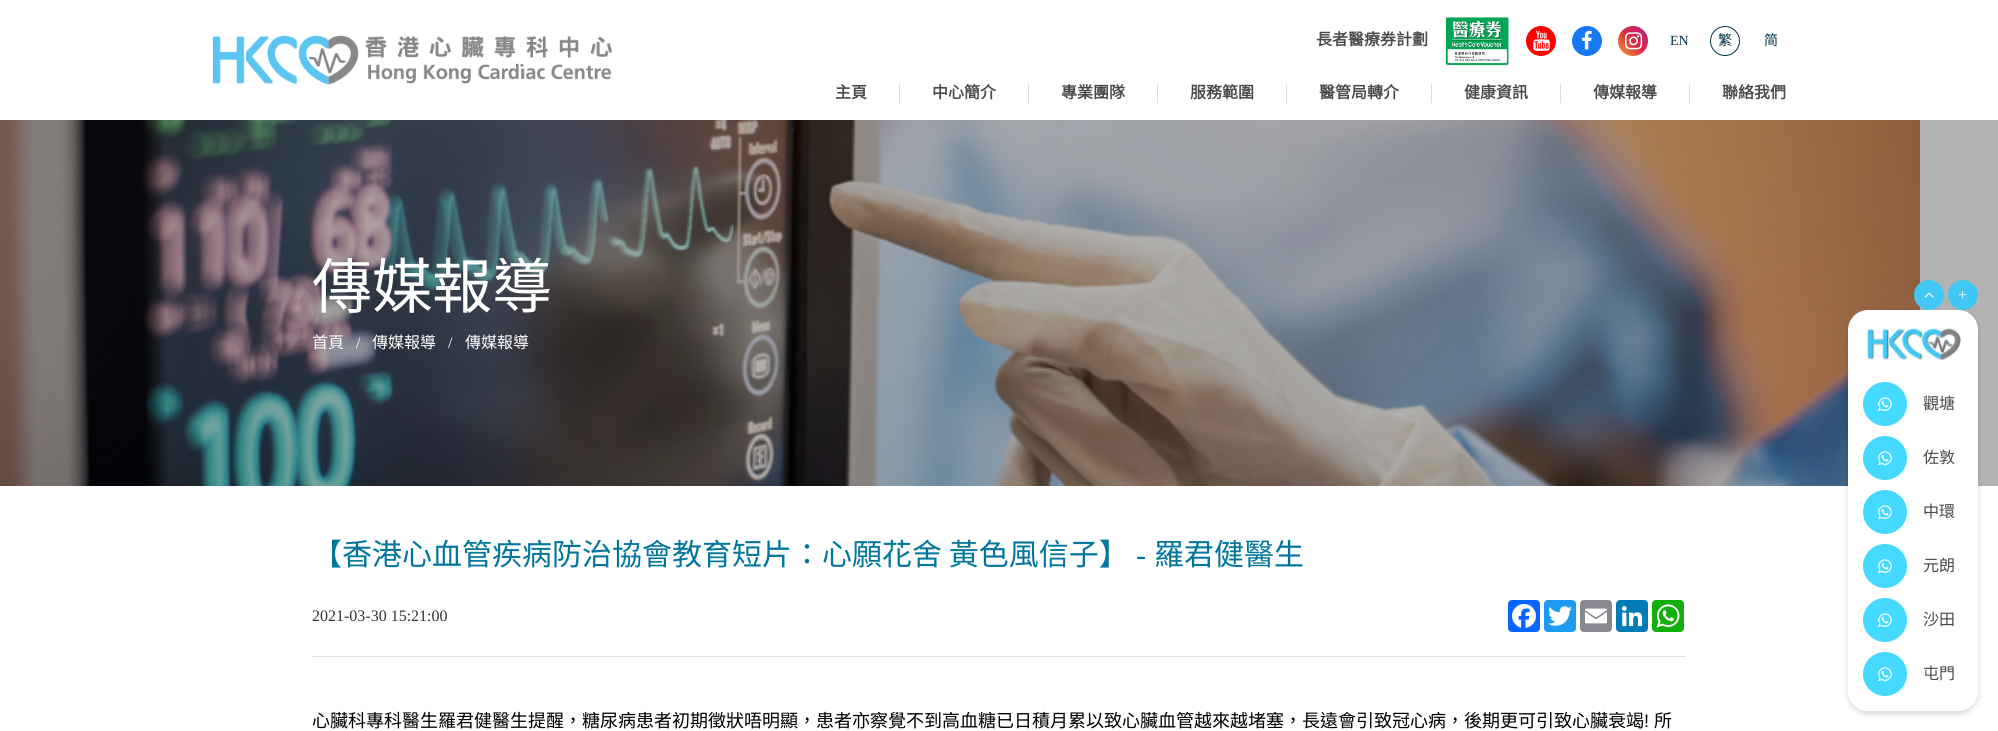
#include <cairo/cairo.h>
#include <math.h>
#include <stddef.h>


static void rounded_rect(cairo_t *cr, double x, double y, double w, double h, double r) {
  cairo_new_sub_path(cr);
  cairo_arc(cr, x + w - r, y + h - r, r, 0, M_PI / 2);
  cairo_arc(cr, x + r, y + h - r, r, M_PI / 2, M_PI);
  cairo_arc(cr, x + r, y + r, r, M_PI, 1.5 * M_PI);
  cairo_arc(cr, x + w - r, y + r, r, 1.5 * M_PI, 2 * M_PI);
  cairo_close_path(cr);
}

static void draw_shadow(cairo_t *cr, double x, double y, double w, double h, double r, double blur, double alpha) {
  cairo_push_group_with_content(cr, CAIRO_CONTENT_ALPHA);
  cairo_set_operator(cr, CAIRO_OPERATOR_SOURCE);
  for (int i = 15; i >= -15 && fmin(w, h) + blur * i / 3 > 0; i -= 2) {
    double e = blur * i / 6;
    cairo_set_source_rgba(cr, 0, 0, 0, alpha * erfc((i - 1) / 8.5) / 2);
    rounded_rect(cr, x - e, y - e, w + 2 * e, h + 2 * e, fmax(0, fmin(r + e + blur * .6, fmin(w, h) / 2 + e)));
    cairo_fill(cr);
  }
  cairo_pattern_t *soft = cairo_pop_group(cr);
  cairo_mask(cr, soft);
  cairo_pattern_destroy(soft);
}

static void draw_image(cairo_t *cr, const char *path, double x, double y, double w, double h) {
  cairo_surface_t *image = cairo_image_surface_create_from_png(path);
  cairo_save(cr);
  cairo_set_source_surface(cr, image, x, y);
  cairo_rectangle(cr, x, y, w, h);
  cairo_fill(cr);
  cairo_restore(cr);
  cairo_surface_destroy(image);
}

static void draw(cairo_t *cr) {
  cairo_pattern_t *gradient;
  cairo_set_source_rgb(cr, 1, 1, 1);
  cairo_paint(cr);
  cairo_set_source_rgb(cr, 179 / 255.0, 179 / 255.0, 179 / 255.0);
  cairo_rectangle(cr, 1920, 120, 78, 366);
  cairo_fill(cr);
  draw_image(cr, "images/1.png", 212, 35, 400, 50);
  draw_image(cr, "images/2.png", 1444, 17, 66, 49);
  cairo_set_source_rgb(cr, 254 / 255.0, 0, 0);
  cairo_arc(cr, 1541, 41, 15, 0, 2 * M_PI);
  cairo_fill(cr);
  draw_image(cr, "images/3.png", 1533, 30, 17, 21);
  cairo_set_source_rgb(cr, 22 / 255.0, 121 / 255.0, 241 / 255.0);
  cairo_arc(cr, 1587, 41, 15, 0, 2 * M_PI);
  cairo_fill(cr);
  draw_image(cr, "images/4.png", 1582, 30, 10, 20);
  gradient = cairo_pattern_create_linear(1618, 56, 1648, 26);
  cairo_pattern_add_color_stop_rgba(gradient, 0, 240 / 255.0, 148 / 255.0, 51 / 255.0, 1);
  cairo_pattern_add_color_stop_rgba(gradient, 0.25, 230 / 255.0, 104 / 255.0, 60 / 255.0, 1);
  cairo_pattern_add_color_stop_rgba(gradient, 0.5, 220 / 255.0, 39 / 255.0, 67 / 255.0, 1);
  cairo_pattern_add_color_stop_rgba(gradient, 0.75, 204 / 255.0, 35 / 255.0, 102 / 255.0, 1);
  cairo_pattern_add_color_stop_rgba(gradient, 1, 188 / 255.0, 24 / 255.0, 136 / 255.0, 1);
  cairo_set_source(cr, gradient);
  cairo_pattern_destroy(gradient);
  cairo_arc(cr, 1633, 41, 15, 0, 2 * M_PI);
  cairo_fill(cr);
  draw_image(cr, "images/5.png", 1625, 32, 18, 18);
  cairo_arc(cr, 1725, 41, 14.5, 0, 2 * M_PI);
  cairo_set_source_rgb(cr, 0, 52 / 255.0, 73 / 255.0);
  cairo_set_line_width(cr, 1);
  cairo_stroke(cr);
  cairo_set_source_rgb(cr, 220 / 255.0, 220 / 255.0, 220 / 255.0);
  cairo_rectangle(cr, 899, 84, 1, 19);
  cairo_fill(cr);
  cairo_rectangle(cr, 1028, 84, 1, 19);
  cairo_fill(cr);
  cairo_rectangle(cr, 1157, 84, 1, 19);
  cairo_fill(cr);
  cairo_rectangle(cr, 1286, 84, 1, 19);
  cairo_fill(cr);
  cairo_rectangle(cr, 1431, 84, 1, 19);
  cairo_fill(cr);
  cairo_rectangle(cr, 1560, 84, 1, 19);
  cairo_fill(cr);
  cairo_rectangle(cr, 1689, 84, 1, 19);
  cairo_fill(cr);
  draw_image(cr, "images/6.png", 0, 120, 1920, 366);
  cairo_set_source_rgb(cr, 222 / 255.0, 226 / 255.0, 230 / 255.0);
  cairo_rectangle(cr, 312, 656, 1374, 1);
  cairo_fill(cr);
  cairo_set_source_rgb(cr, 8 / 255.0, 102 / 255.0, 1);
  rounded_rect(cr, 1508, 600, 32, 32, 4);
  cairo_fill(cr);
  draw_image(cr, "images/7.png", 1512, 604, 24, 24);
  cairo_set_source_rgb(cr, 29 / 255.0, 155 / 255.0, 240 / 255.0);
  rounded_rect(cr, 1544, 600, 32, 32, 4);
  cairo_fill(cr);
  draw_image(cr, "images/8.png", 1548, 606, 24, 20);
  cairo_set_source_rgb(cr, 136 / 255.0, 137 / 255.0, 144 / 255.0);
  rounded_rect(cr, 1580, 600, 32, 32, 4);
  cairo_fill(cr);
  draw_image(cr, "images/9.png", 1585, 608, 22, 16);
  cairo_set_source_rgb(cr, 0, 123 / 255.0, 181 / 255.0);
  rounded_rect(cr, 1616, 600, 32, 32, 4);
  cairo_fill(cr);
  draw_image(cr, "images/10.png", 1621, 605, 22, 22);
  cairo_set_source_rgb(cr, 18 / 255.0, 175 / 255.0, 10 / 255.0);
  rounded_rect(cr, 1652, 600, 32, 32, 4);
  cairo_fill(cr);
  draw_image(cr, "images/11.png", 1656, 604, 24, 24);
  cairo_set_source_rgb(cr, 0, 0, 0);
  draw_shadow(cr, 1848, 313, 130, 401, 20, 3, 0.16);
  cairo_set_source_rgb(cr, 1, 1, 1);
  rounded_rect(cr, 1848, 310, 130, 401, 20);
  cairo_fill(cr);
  cairo_set_source_rgb(cr, 64 / 255.0, 199 / 255.0, 244 / 255.0);
  cairo_arc(cr, 1929, 295, 15, 0, 2 * M_PI);
  cairo_fill(cr);
  draw_image(cr, "images/12.png", 1924, 292, 10, 6);
  cairo_arc(cr, 1963, 295, 15, 0, 2 * M_PI);
  cairo_fill(cr);
  draw_image(cr, "images/13.png", 1867, 328, 95, 33);
  cairo_set_source_rgb(cr, 69 / 255.0, 217 / 255.0, 1);
  cairo_arc(cr, 1885, 404, 22, 0, 2 * M_PI);
  cairo_fill(cr);
  draw_image(cr, "images/14.png", 1878, 397, 14, 15);
  cairo_arc(cr, 1885, 458, 22, 0, 2 * M_PI);
  cairo_fill(cr);
  draw_image(cr, "images/14.png", 1878, 451, 14, 15);
  cairo_arc(cr, 1885, 512, 22, 0, 2 * M_PI);
  cairo_fill(cr);
  draw_image(cr, "images/14.png", 1878, 505, 14, 15);
  cairo_arc(cr, 1885, 566, 22, 0, 2 * M_PI);
  cairo_fill(cr);
  draw_image(cr, "images/14.png", 1878, 559, 14, 15);
  cairo_arc(cr, 1885, 620, 22, 0, 2 * M_PI);
  cairo_fill(cr);
  draw_image(cr, "images/14.png", 1878, 613, 14, 15);
  cairo_arc(cr, 1885, 674, 22, 0, 2 * M_PI);
  cairo_fill(cr);
  draw_image(cr, "images/14.png", 1878, 667, 14, 15);
  cairo_select_font_face(cr, "Noto Sans CJK HK", CAIRO_FONT_SLANT_NORMAL, CAIRO_FONT_WEIGHT_BOLD);
  cairo_set_font_size(cr, 16);
  cairo_set_source_rgb(cr, 74 / 255.0, 74 / 255.0, 74 / 255.0);
  cairo_move_to(cr, 1316, 45);
  cairo_show_text(cr, "長者醫療券計劃");
  cairo_select_font_face(cr, "Liberation Serif", CAIRO_FONT_SLANT_NORMAL, CAIRO_FONT_WEIGHT_NORMAL);
  cairo_set_font_size(cr, 14);
  cairo_set_source_rgb(cr, 0, 52 / 255.0, 73 / 255.0);
  cairo_move_to(cr, 1670, 45);
  cairo_show_text(cr, "EN");
  cairo_select_font_face(cr, "Noto Sans CJK HK", CAIRO_FONT_SLANT_NORMAL, CAIRO_FONT_WEIGHT_NORMAL);
  cairo_move_to(cr, 1718, 45);
  cairo_show_text(cr, "繁");
  cairo_move_to(cr, 1764, 45);
  cairo_show_text(cr, "简");
  cairo_select_font_face(cr, "Noto Sans CJK HK", CAIRO_FONT_SLANT_NORMAL, CAIRO_FONT_WEIGHT_BOLD);
  cairo_set_font_size(cr, 16);
  cairo_set_source_rgb(cr, 74 / 255.0, 74 / 255.0, 74 / 255.0);
  cairo_move_to(cr, 835, 98);
  cairo_show_text(cr, "主頁");
  cairo_move_to(cr, 932, 98);
  cairo_show_text(cr, "中心簡介");
  cairo_move_to(cr, 1061, 98);
  cairo_show_text(cr, "專業團隊");
  cairo_move_to(cr, 1190, 98);
  cairo_show_text(cr, "服務範圍");
  cairo_move_to(cr, 1319, 98);
  cairo_show_text(cr, "醫管局轉介");
  cairo_move_to(cr, 1464, 98);
  cairo_show_text(cr, "健康資訊");
  cairo_move_to(cr, 1593, 98);
  cairo_show_text(cr, "傳媒報導");
  cairo_move_to(cr, 1722, 98);
  cairo_show_text(cr, "聯絡我們");
  cairo_select_font_face(cr, "Noto Sans CJK HK", CAIRO_FONT_SLANT_NORMAL, CAIRO_FONT_WEIGHT_NORMAL);
  cairo_set_font_size(cr, 60);
  cairo_set_source_rgb(cr, 1, 1, 1);
  cairo_move_to(cr, 312, 308);
  cairo_show_text(cr, "傳媒報導");
  cairo_set_font_size(cr, 16);
  cairo_move_to(cr, 312, 348);
  cairo_show_text(cr, "首頁");
  cairo_select_font_face(cr, "Liberation Serif", CAIRO_FONT_SLANT_NORMAL, CAIRO_FONT_WEIGHT_NORMAL);
  cairo_move_to(cr, 356, 348);
  cairo_show_text(cr, "/");
  cairo_select_font_face(cr, "Noto Sans CJK HK", CAIRO_FONT_SLANT_NORMAL, CAIRO_FONT_WEIGHT_NORMAL);
  cairo_move_to(cr, 372, 348);
  cairo_show_text(cr, "傳媒報導");
  cairo_select_font_face(cr, "Liberation Serif", CAIRO_FONT_SLANT_NORMAL, CAIRO_FONT_WEIGHT_NORMAL);
  cairo_move_to(cr, 448, 348);
  cairo_show_text(cr, "/");
  cairo_select_font_face(cr, "Noto Sans CJK HK", CAIRO_FONT_SLANT_NORMAL, CAIRO_FONT_WEIGHT_NORMAL);
  cairo_move_to(cr, 465, 348);
  cairo_show_text(cr, "傳媒報導");
  cairo_set_font_size(cr, 30);
  cairo_set_source_rgb(cr, 1 / 255.0, 118 / 255.0, 157 / 255.0);
  cairo_move_to(cr, 312, 565);
  cairo_show_text(cr, "【香港心血管疾病防治協會教育短片：心願花舍 黃色風信子】");
  cairo_select_font_face(cr, "Liberation Serif", CAIRO_FONT_SLANT_NORMAL, CAIRO_FONT_WEIGHT_NORMAL);
  cairo_move_to(cr, 1136, 565);
  cairo_show_text(cr, "-");
  cairo_select_font_face(cr, "Noto Sans CJK HK", CAIRO_FONT_SLANT_NORMAL, CAIRO_FONT_WEIGHT_NORMAL);
  cairo_move_to(cr, 1154, 565);
  cairo_show_text(cr, "羅君健醫生");
  cairo_select_font_face(cr, "Liberation Serif", CAIRO_FONT_SLANT_NORMAL, CAIRO_FONT_WEIGHT_NORMAL);
  cairo_set_font_size(cr, 16);
  cairo_set_source_rgb(cr, 51 / 255.0, 51 / 255.0, 51 / 255.0);
  cairo_move_to(cr, 312, 621);
  cairo_show_text(cr, "2021-03-30 15:21:00");
  cairo_select_font_face(cr, "Noto Sans CJK HK", CAIRO_FONT_SLANT_NORMAL, CAIRO_FONT_WEIGHT_NORMAL);
  cairo_set_font_size(cr, 18);
  cairo_set_source_rgb(cr, 0, 0, 0);
  cairo_move_to(cr, 312, 727);
  cairo_show_text(cr, "心臟科專科醫生羅君健醫生提醒，糖尿病患者初期徵狀唔明顯，患者亦察覺不到高血糖已日積月累以致心臟血管越來越堵塞，長遠會引致冠心病，後期更可引致心臟衰竭");
  cairo_select_font_face(cr, "Liberation Sans", CAIRO_FONT_SLANT_NORMAL, CAIRO_FONT_WEIGHT_NORMAL);
  cairo_move_to(cr, 1644, 727);
  cairo_show_text(cr, "!");
  cairo_select_font_face(cr, "Noto Sans CJK HK", CAIRO_FONT_SLANT_NORMAL, CAIRO_FONT_WEIGHT_NORMAL);
  cairo_move_to(cr, 1654, 727);
  cairo_show_text(cr, "所");
  cairo_select_font_face(cr, "Liberation Serif", CAIRO_FONT_SLANT_NORMAL, CAIRO_FONT_WEIGHT_NORMAL);
  cairo_set_font_size(cr, 16);
  cairo_set_source_rgb(cr, 1, 1, 1);
  cairo_move_to(cr, 1958, 300);
  cairo_show_text(cr, "+");
  cairo_select_font_face(cr, "Noto Sans CJK HK", CAIRO_FONT_SLANT_NORMAL, CAIRO_FONT_WEIGHT_NORMAL);
  cairo_set_source_rgb(cr, 74 / 255.0, 74 / 255.0, 74 / 255.0);
  cairo_move_to(cr, 1923, 409);
  cairo_show_text(cr, "觀塘");
  cairo_move_to(cr, 1923, 463);
  cairo_show_text(cr, "佐敦");
  cairo_move_to(cr, 1923, 517);
  cairo_show_text(cr, "中環");
  cairo_move_to(cr, 1923, 571);
  cairo_show_text(cr, "元朗");
  cairo_move_to(cr, 1923, 625);
  cairo_show_text(cr, "沙田");
  cairo_move_to(cr, 1923, 679);
  cairo_show_text(cr, "屯門");
}

int main(void) {
  cairo_surface_t *surface = cairo_image_surface_create(CAIRO_FORMAT_RGB24, 1998, 731);
  cairo_t *cr = cairo_create(surface);
  cairo_font_options_t *options = cairo_font_options_create();
  cairo_font_options_set_hint_metrics(options, CAIRO_HINT_METRICS_OFF);
  cairo_font_options_set_hint_style(options, CAIRO_HINT_STYLE_NONE);
  cairo_set_font_options(cr, options);
  cairo_set_miter_limit(cr, 4);
  draw(cr);
  cairo_surface_write_to_png(surface, "out.png");
  cairo_font_options_destroy(options);
  cairo_destroy(cr);
  cairo_surface_destroy(surface);
  return 0;
}
